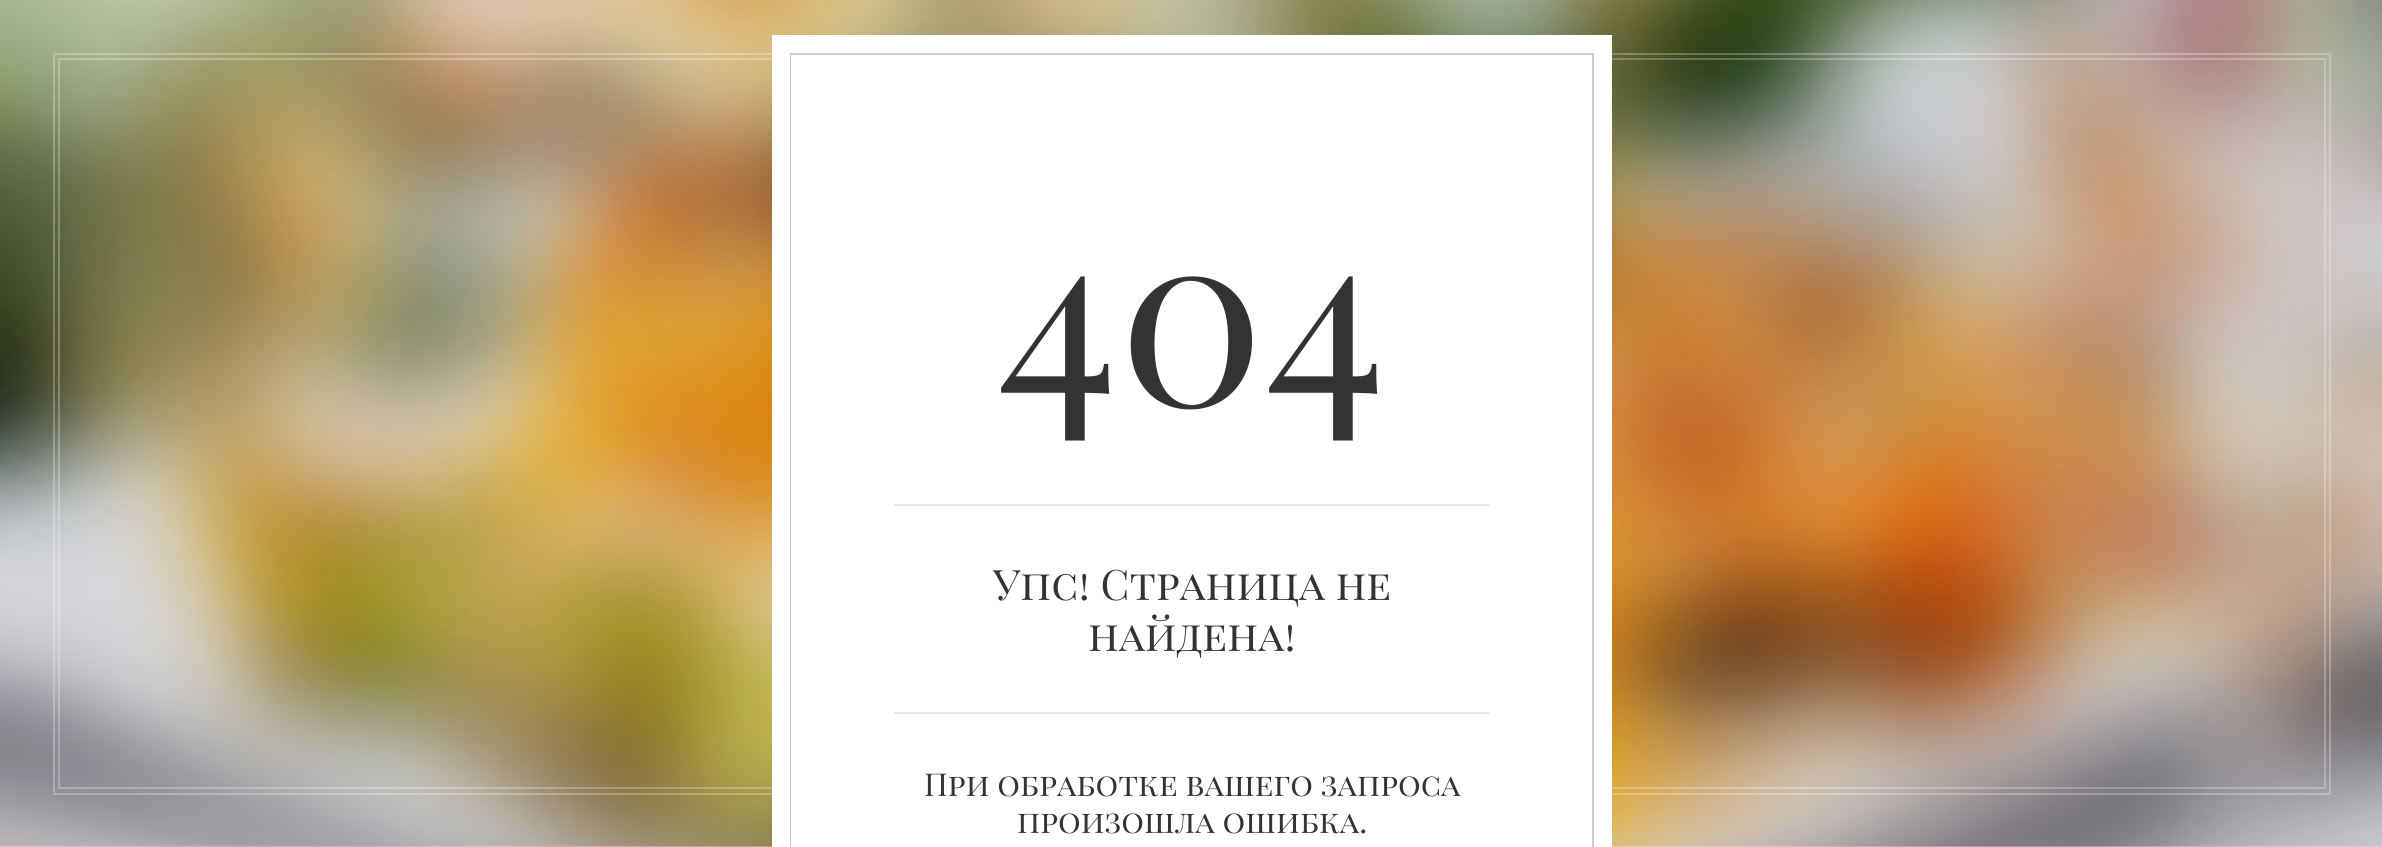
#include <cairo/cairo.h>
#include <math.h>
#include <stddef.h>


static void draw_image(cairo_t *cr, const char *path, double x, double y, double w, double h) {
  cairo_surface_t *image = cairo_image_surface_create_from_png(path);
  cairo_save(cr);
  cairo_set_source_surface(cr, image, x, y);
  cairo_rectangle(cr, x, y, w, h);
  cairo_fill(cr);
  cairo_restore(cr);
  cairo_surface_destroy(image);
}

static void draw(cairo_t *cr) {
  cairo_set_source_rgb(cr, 1, 1, 1);
  cairo_paint(cr);
  draw_image(cr, "images/1.png", 0, 0, 2382, 847);
  cairo_rectangle(cr, 54, 54, 2276, 740);
  cairo_set_source_rgba(cr, 1, 1, 1, 0.25);
  cairo_stroke(cr);
  cairo_rectangle(cr, 59, 59, 2266, 729);
  cairo_stroke(cr);
  cairo_set_source_rgb(cr, 1, 1, 1);
  cairo_rectangle(cr, 790, 54, 803, 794);
  cairo_fill_preserve(cr);
  cairo_set_source_rgb(cr, 204 / 255.0, 204 / 255.0, 204 / 255.0);
  cairo_stroke(cr);
  cairo_rectangle(cr, 781, 44, 822, 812);
  cairo_set_source_rgb(cr, 1, 1, 1);
  cairo_set_line_width(cr, 18);
  cairo_stroke(cr);
  cairo_set_source_rgb(cr, 229 / 255.0, 229 / 255.0, 229 / 255.0);
  cairo_rectangle(cr, 894, 504, 595, 2);
  cairo_fill(cr);
  cairo_rectangle(cr, 894, 712, 595, 2);
  cairo_fill(cr);
  cairo_select_font_face(cr, "Playfair Display SC", CAIRO_FONT_SLANT_NORMAL, CAIRO_FONT_WEIGHT_NORMAL);
  cairo_set_font_size(cr, 245);
  cairo_set_source_rgb(cr, 51 / 255.0, 51 / 255.0, 51 / 255.0);
  cairo_move_to(cr, 997, 406);
  cairo_show_text(cr, "404");
  cairo_set_font_size(cr, 42);
  cairo_move_to(cr, 993, 600);
  cairo_show_text(cr, "Упс! Страница не");
  cairo_move_to(cr, 1088, 651);
  cairo_show_text(cr, "найдена!");
  cairo_set_font_size(cr, 31.5);
  cairo_move_to(cr, 924, 796);
  cairo_show_text(cr, "При обработке вашего запроса");
  cairo_move_to(cr, 1017, 833);
  cairo_show_text(cr, "произошла ошибка.");
}

int main(void) {
  cairo_surface_t *surface = cairo_image_surface_create(CAIRO_FORMAT_RGB24, 2382, 847);
  cairo_t *cr = cairo_create(surface);
  cairo_font_options_t *options = cairo_font_options_create();
  cairo_font_options_set_hint_metrics(options, CAIRO_HINT_METRICS_OFF);
  cairo_font_options_set_hint_style(options, CAIRO_HINT_STYLE_NONE);
  cairo_set_font_options(cr, options);
  cairo_set_miter_limit(cr, 4);
  draw(cr);
  cairo_surface_write_to_png(surface, "out.png");
  cairo_font_options_destroy(options);
  cairo_destroy(cr);
  cairo_surface_destroy(surface);
  return 0;
}
